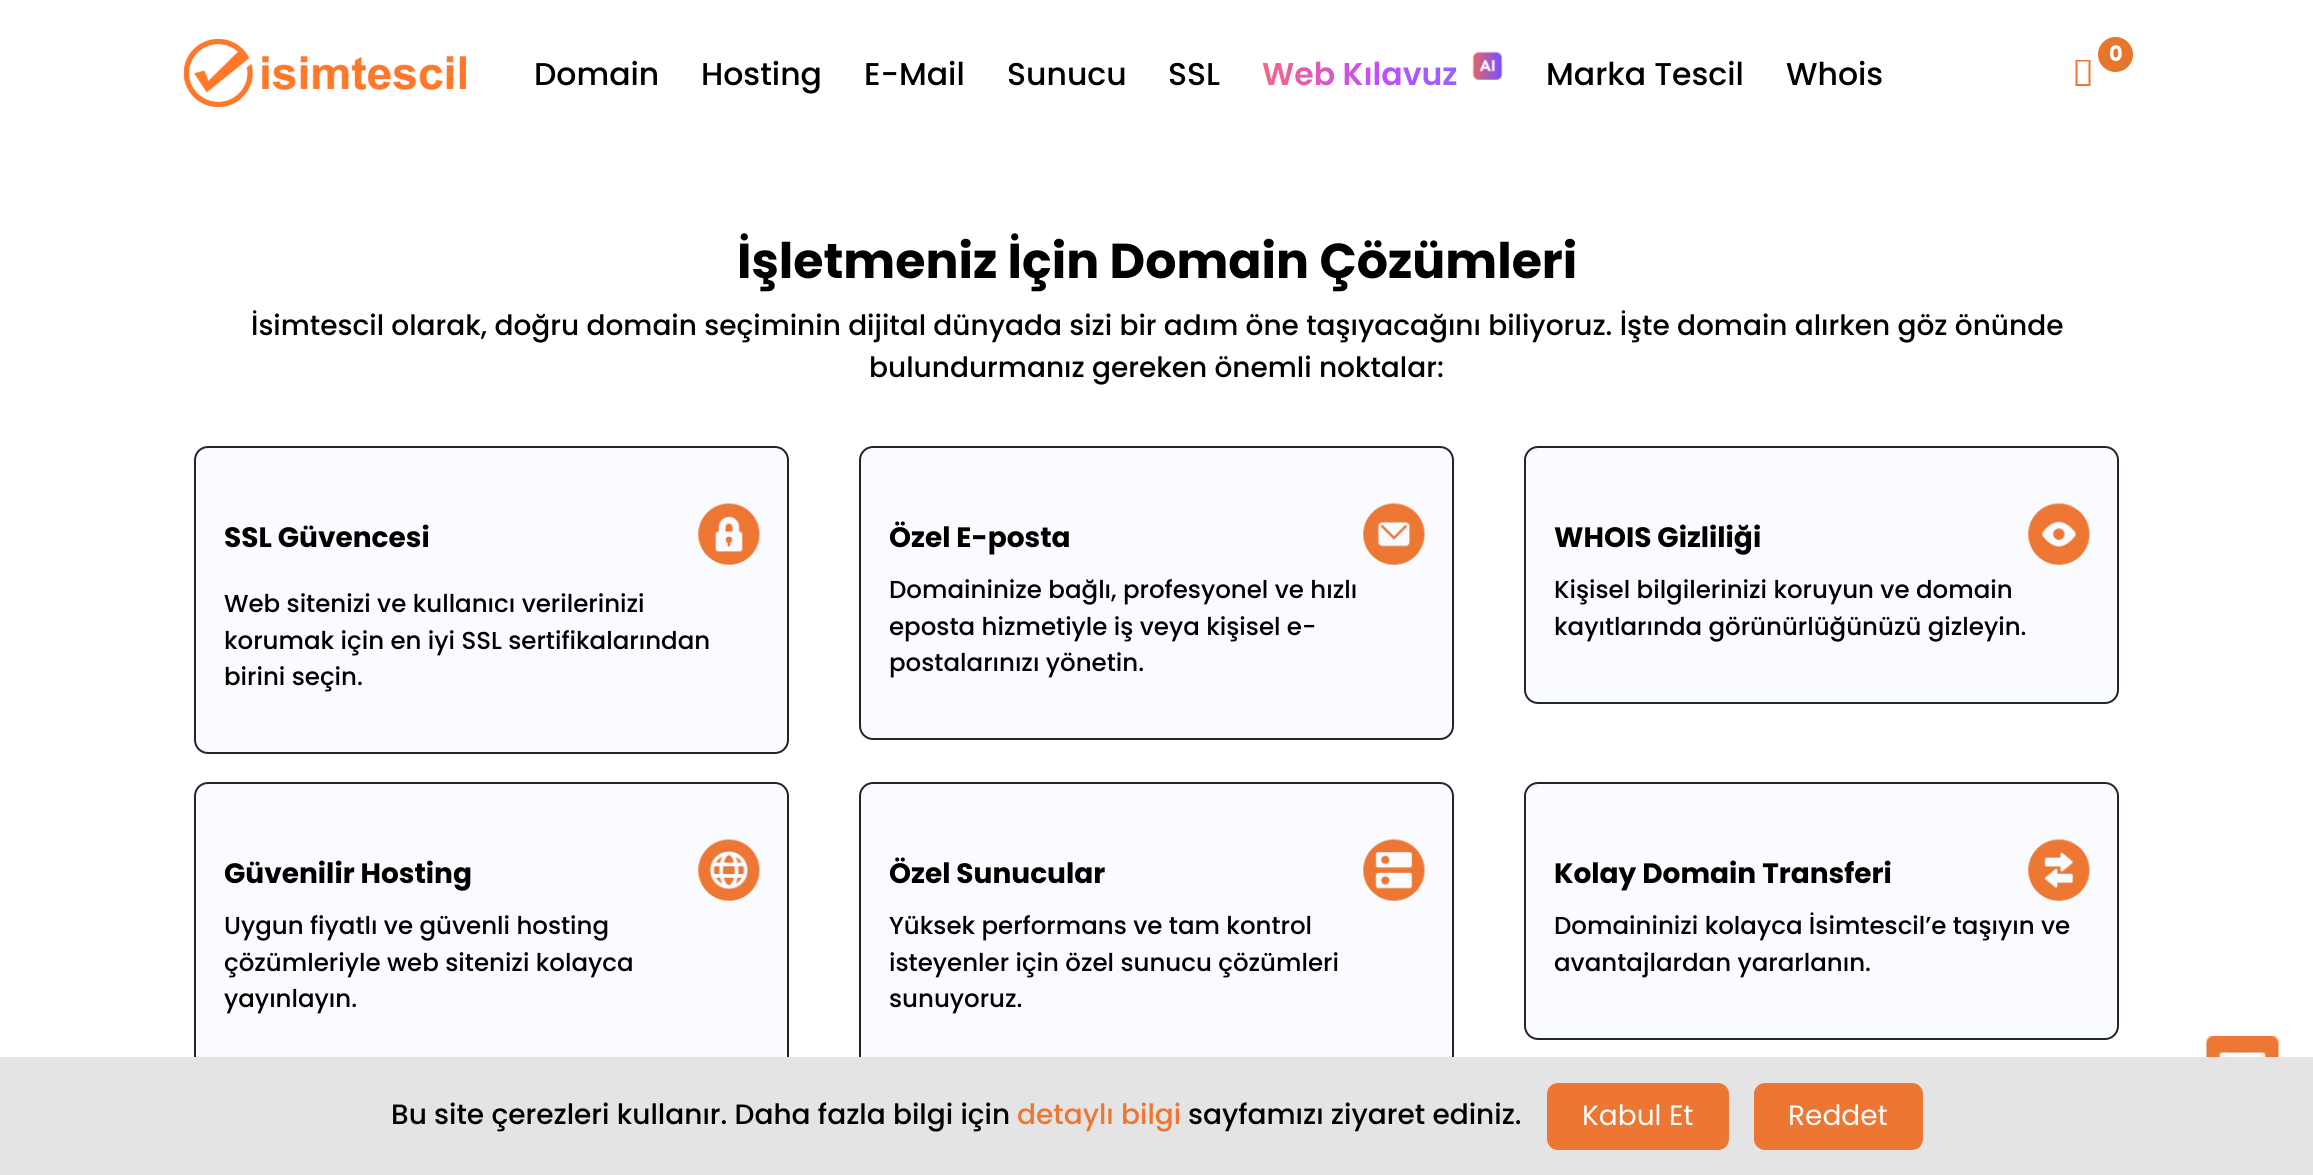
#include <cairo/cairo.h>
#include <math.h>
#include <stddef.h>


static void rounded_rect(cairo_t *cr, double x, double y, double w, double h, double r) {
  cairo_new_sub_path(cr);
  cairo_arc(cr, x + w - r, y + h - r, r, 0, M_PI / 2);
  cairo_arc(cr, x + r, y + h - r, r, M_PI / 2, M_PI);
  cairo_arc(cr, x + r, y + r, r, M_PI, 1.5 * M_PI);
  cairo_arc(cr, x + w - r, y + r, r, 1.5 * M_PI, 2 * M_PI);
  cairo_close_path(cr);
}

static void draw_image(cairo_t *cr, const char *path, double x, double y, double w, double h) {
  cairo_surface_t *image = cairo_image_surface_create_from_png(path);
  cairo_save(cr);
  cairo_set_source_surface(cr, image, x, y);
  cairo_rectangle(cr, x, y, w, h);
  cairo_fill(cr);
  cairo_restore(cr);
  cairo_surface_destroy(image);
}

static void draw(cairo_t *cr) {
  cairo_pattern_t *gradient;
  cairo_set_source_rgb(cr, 1, 1, 1);
  cairo_paint(cr);
  draw_image(cr, "images/1.png", 183, 39, 283, 68);
  cairo_set_source_rgb(cr, 229 / 255.0, 118 / 255.0, 44 / 255.0);
  cairo_arc(cr, 2115.5, 54.5, 17.5, 0, 2 * M_PI);
  cairo_fill(cr);
  cairo_set_source_rgb(cr, 238 / 255.0, 118 / 255.0, 51 / 255.0);
  cairo_new_path(cr);
  cairo_move_to(cr, 2075.5, 86);
  cairo_line_to(cr, 2075.5, 60);
  cairo_line_to(cr, 2090.5, 60);
  cairo_line_to(cr, 2090.5, 86);
  cairo_close_path(cr);
  cairo_move_to(cr, 2077.5, 84);
  cairo_line_to(cr, 2088.5, 84);
  cairo_line_to(cr, 2088.5, 61.5);
  cairo_line_to(cr, 2077.5, 61.5);
  cairo_close_path(cr);
  cairo_fill(cr);
  draw_image(cr, "images/2.png", 1472, 51, 31, 29);
  cairo_set_source_rgb(cr, 250 / 255.0, 251 / 255.0, 1);
  rounded_rect(cr, 195, 447, 593, 306, 13);
  cairo_fill_preserve(cr);
  cairo_set_source_rgb(cr, 33 / 255.0, 37 / 255.0, 41 / 255.0);
  cairo_stroke(cr);
  draw_image(cr, "images/3.png", 698, 503, 62, 62);
  cairo_set_source_rgb(cr, 250 / 255.0, 251 / 255.0, 1);
  rounded_rect(cr, 860, 447, 593, 292, 13);
  cairo_fill_preserve(cr);
  cairo_set_source_rgb(cr, 33 / 255.0, 37 / 255.0, 41 / 255.0);
  cairo_stroke(cr);
  draw_image(cr, "images/4.png", 1363, 503, 62, 62);
  cairo_set_source_rgb(cr, 250 / 255.0, 251 / 255.0, 1);
  rounded_rect(cr, 1525, 447, 593, 256, 13);
  cairo_fill_preserve(cr);
  cairo_set_source_rgb(cr, 33 / 255.0, 37 / 255.0, 41 / 255.0);
  cairo_stroke(cr);
  draw_image(cr, "images/5.png", 2028, 503, 62, 62);
  cairo_set_source_rgb(cr, 250 / 255.0, 251 / 255.0, 1);
  rounded_rect(cr, 195, 783, 593, 292, 13);
  cairo_fill_preserve(cr);
  cairo_set_source_rgb(cr, 33 / 255.0, 37 / 255.0, 41 / 255.0);
  cairo_stroke(cr);
  draw_image(cr, "images/6.png", 698, 839, 62, 62);
  cairo_set_source_rgb(cr, 250 / 255.0, 251 / 255.0, 1);
  rounded_rect(cr, 860, 783, 593, 292, 13);
  cairo_fill_preserve(cr);
  cairo_set_source_rgb(cr, 33 / 255.0, 37 / 255.0, 41 / 255.0);
  cairo_stroke(cr);
  draw_image(cr, "images/7.png", 1363, 839, 62, 62);
  cairo_set_source_rgb(cr, 250 / 255.0, 251 / 255.0, 1);
  rounded_rect(cr, 1525, 783, 593, 256, 13);
  cairo_fill_preserve(cr);
  cairo_set_source_rgb(cr, 33 / 255.0, 37 / 255.0, 41 / 255.0);
  cairo_stroke(cr);
  draw_image(cr, "images/8.png", 2028, 839, 62, 62);
  draw_image(cr, "images/9.png", 2206, 1036, 73, 21);
  cairo_set_source_rgb(cr, 228 / 255.0, 228 / 255.0, 228 / 255.0);
  cairo_rectangle(cr, 0, 1057, 2313, 118);
  cairo_fill(cr);
  cairo_set_source_rgb(cr, 238 / 255.0, 118 / 255.0, 51 / 255.0);
  rounded_rect(cr, 1547, 1083, 182, 67, 11);
  cairo_fill(cr);
  rounded_rect(cr, 1754, 1083, 169, 67, 11);
  cairo_fill(cr);
  cairo_select_font_face(cr, "Poppins", CAIRO_FONT_SLANT_NORMAL, CAIRO_FONT_WEIGHT_BOLD);
  cairo_set_font_size(cr, 21);
  cairo_set_source_rgb(cr, 1, 1, 1);
  cairo_move_to(cr, 2109, 61);
  cairo_show_text(cr, "0");
  cairo_select_font_face(cr, "Poppins Medium", CAIRO_FONT_SLANT_NORMAL, CAIRO_FONT_WEIGHT_NORMAL);
  cairo_set_font_size(cr, 31.5);
  cairo_set_source_rgb(cr, 0, 0, 0);
  cairo_move_to(cr, 534, 85);
  cairo_show_text(cr, "Domain");
  cairo_move_to(cr, 701, 85);
  cairo_show_text(cr, "Hosting");
  cairo_move_to(cr, 864, 85);
  cairo_show_text(cr, "E-Mail");
  cairo_move_to(cr, 1007, 85);
  cairo_show_text(cr, "Sunucu");
  cairo_move_to(cr, 1168, 85);
  cairo_show_text(cr, "SSL");
  cairo_select_font_face(cr, "Poppins SemiBold", CAIRO_FONT_SLANT_NORMAL, CAIRO_FONT_WEIGHT_NORMAL);
  gradient = cairo_pattern_create_linear(1241, 74, 1525, 74);
  cairo_pattern_add_color_stop_rgba(gradient, 0, 1, 106 / 255.0, 106 / 255.0, 1);
  cairo_pattern_add_color_stop_rgba(gradient, 0.5, 192 / 255.0, 77 / 255.0, 1, 1);
  cairo_pattern_add_color_stop_rgba(gradient, 1, 106 / 255.0, 117 / 255.0, 1, 1);
  cairo_set_source(cr, gradient);
  cairo_pattern_destroy(gradient);
  cairo_move_to(cr, 1262, 85);
  cairo_show_text(cr, "Web Kılavuz");
  cairo_select_font_face(cr, "Poppins Medium", CAIRO_FONT_SLANT_NORMAL, CAIRO_FONT_WEIGHT_NORMAL);
  cairo_set_source_rgb(cr, 0, 0, 0);
  cairo_move_to(cr, 1546, 85);
  cairo_show_text(cr, "Marka Tescil");
  cairo_move_to(cr, 1786, 85);
  cairo_show_text(cr, "Whois");
  cairo_select_font_face(cr, "Poppins", CAIRO_FONT_SLANT_NORMAL, CAIRO_FONT_WEIGHT_BOLD);
  cairo_set_font_size(cr, 49);
  cairo_move_to(cr, 737, 278);
  cairo_show_text(cr, "İşletmeniz İçin Domain Çözümleri");
  cairo_select_font_face(cr, "Poppins Medium", CAIRO_FONT_SLANT_NORMAL, CAIRO_FONT_WEIGHT_NORMAL);
  cairo_set_font_size(cr, 28);
  cairo_move_to(cr, 251, 335);
  cairo_show_text(cr, "İsimtescil olarak, doğru domain seçiminin dijital dünyada sizi bir adım öne taşıyacağını biliyoruz. İşte domain alırken göz önünde");
  cairo_move_to(cr, 869, 377);
  cairo_show_text(cr, "bulundurmanız gereken önemli noktalar:");
  cairo_select_font_face(cr, "Poppins", CAIRO_FONT_SLANT_NORMAL, CAIRO_FONT_WEIGHT_BOLD);
  cairo_move_to(cr, 224, 547);
  cairo_show_text(cr, "SSL Güvencesi");
  cairo_select_font_face(cr, "Poppins Medium", CAIRO_FONT_SLANT_NORMAL, CAIRO_FONT_WEIGHT_NORMAL);
  cairo_set_font_size(cr, 24.5);
  cairo_move_to(cr, 224, 612);
  cairo_show_text(cr, "Web sitenizi ve kullanıcı verilerinizi");
  cairo_move_to(cr, 224, 649);
  cairo_show_text(cr, "korumak için en iyi SSL sertifikalarından");
  cairo_move_to(cr, 224, 685);
  cairo_show_text(cr, "birini seçin.");
  cairo_select_font_face(cr, "Poppins", CAIRO_FONT_SLANT_NORMAL, CAIRO_FONT_WEIGHT_BOLD);
  cairo_set_font_size(cr, 28);
  cairo_move_to(cr, 889, 547);
  cairo_show_text(cr, "Özel E-posta");
  cairo_select_font_face(cr, "Poppins Medium", CAIRO_FONT_SLANT_NORMAL, CAIRO_FONT_WEIGHT_NORMAL);
  cairo_set_font_size(cr, 24.5);
  cairo_move_to(cr, 889, 598);
  cairo_show_text(cr, "Domaininize bağlı, profesyonel ve hızlı");
  cairo_move_to(cr, 889, 635);
  cairo_show_text(cr, "eposta hizmetiyle iş veya kişisel e-");
  cairo_move_to(cr, 889, 671);
  cairo_show_text(cr, "postalarınızı yönetin.");
  cairo_select_font_face(cr, "Poppins", CAIRO_FONT_SLANT_NORMAL, CAIRO_FONT_WEIGHT_BOLD);
  cairo_set_font_size(cr, 28);
  cairo_move_to(cr, 1554, 547);
  cairo_show_text(cr, "WHOIS Gizliliği");
  cairo_select_font_face(cr, "Poppins Medium", CAIRO_FONT_SLANT_NORMAL, CAIRO_FONT_WEIGHT_NORMAL);
  cairo_set_font_size(cr, 24.5);
  cairo_move_to(cr, 1554, 598);
  cairo_show_text(cr, "Kişisel bilgilerinizi koruyun ve domain");
  cairo_move_to(cr, 1554, 635);
  cairo_show_text(cr, "kayıtlarında görünürlüğünüzü gizleyin.");
  cairo_select_font_face(cr, "Poppins", CAIRO_FONT_SLANT_NORMAL, CAIRO_FONT_WEIGHT_BOLD);
  cairo_set_font_size(cr, 28);
  cairo_move_to(cr, 224, 883);
  cairo_show_text(cr, "Güvenilir Hosting");
  cairo_select_font_face(cr, "Poppins Medium", CAIRO_FONT_SLANT_NORMAL, CAIRO_FONT_WEIGHT_NORMAL);
  cairo_set_font_size(cr, 24.5);
  cairo_move_to(cr, 224, 934);
  cairo_show_text(cr, "Uygun fiyatlı ve güvenli hosting");
  cairo_move_to(cr, 224, 971);
  cairo_show_text(cr, "çözümleriyle web sitenizi kolayca");
  cairo_move_to(cr, 224, 1007);
  cairo_show_text(cr, "yayınlayın.");
  cairo_select_font_face(cr, "Poppins", CAIRO_FONT_SLANT_NORMAL, CAIRO_FONT_WEIGHT_BOLD);
  cairo_set_font_size(cr, 28);
  cairo_move_to(cr, 889, 883);
  cairo_show_text(cr, "Özel Sunucular");
  cairo_select_font_face(cr, "Poppins Medium", CAIRO_FONT_SLANT_NORMAL, CAIRO_FONT_WEIGHT_NORMAL);
  cairo_set_font_size(cr, 24.5);
  cairo_move_to(cr, 889, 934);
  cairo_show_text(cr, "Yüksek performans ve tam kontrol");
  cairo_move_to(cr, 889, 971);
  cairo_show_text(cr, "isteyenler için özel sunucu çözümleri");
  cairo_move_to(cr, 889, 1007);
  cairo_show_text(cr, "sunuyoruz.");
  cairo_select_font_face(cr, "Poppins", CAIRO_FONT_SLANT_NORMAL, CAIRO_FONT_WEIGHT_BOLD);
  cairo_set_font_size(cr, 28);
  cairo_move_to(cr, 1554, 883);
  cairo_show_text(cr, "Kolay Domain Transferi");
  cairo_select_font_face(cr, "Poppins Medium", CAIRO_FONT_SLANT_NORMAL, CAIRO_FONT_WEIGHT_NORMAL);
  cairo_set_font_size(cr, 24.5);
  cairo_move_to(cr, 1554, 934);
  cairo_show_text(cr, "Domaininizi kolayca İsimtescil’e taşıyın ve");
  cairo_move_to(cr, 1554, 971);
  cairo_show_text(cr, "avantajlardan yararlanın.");
  cairo_set_font_size(cr, 28);
  cairo_move_to(cr, 391, 1124);
  cairo_show_text(cr, "Bu site çerezleri kullanır. Daha fazla bilgi için");
  cairo_set_source_rgb(cr, 238 / 255.0, 118 / 255.0, 51 / 255.0);
  cairo_move_to(cr, 1017, 1124);
  cairo_show_text(cr, "detaylı bilgi");
  cairo_set_source_rgb(cr, 0, 0, 0);
  cairo_move_to(cr, 1188, 1124);
  cairo_show_text(cr, "sayfamızı ziyaret ediniz.");
  cairo_select_font_face(cr, "Poppins", CAIRO_FONT_SLANT_NORMAL, CAIRO_FONT_WEIGHT_NORMAL);
  cairo_set_source_rgb(cr, 1, 1, 1);
  cairo_move_to(cr, 1582, 1125);
  cairo_show_text(cr, "Kabul Et");
  cairo_move_to(cr, 1788, 1125);
  cairo_show_text(cr, "Reddet");
}

int main(void) {
  cairo_surface_t *surface = cairo_image_surface_create(CAIRO_FORMAT_RGB24, 2313, 1175);
  cairo_t *cr = cairo_create(surface);
  cairo_font_options_t *options = cairo_font_options_create();
  cairo_font_options_set_hint_metrics(options, CAIRO_HINT_METRICS_OFF);
  cairo_font_options_set_hint_style(options, CAIRO_HINT_STYLE_NONE);
  cairo_set_font_options(cr, options);
  cairo_set_miter_limit(cr, 4);
  draw(cr);
  cairo_surface_write_to_png(surface, "out.png");
  cairo_font_options_destroy(options);
  cairo_destroy(cr);
  cairo_surface_destroy(surface);
  return 0;
}
